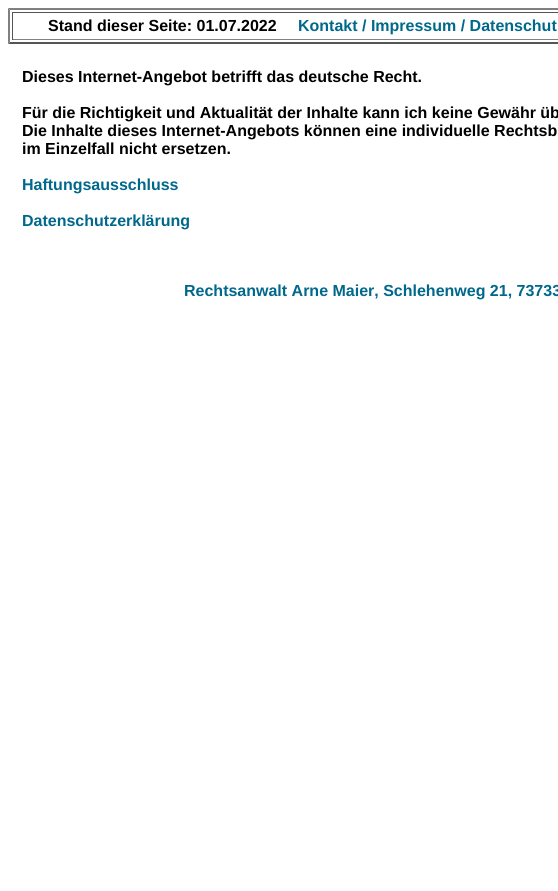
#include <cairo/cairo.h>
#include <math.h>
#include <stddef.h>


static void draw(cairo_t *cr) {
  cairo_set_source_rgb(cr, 1, 1, 1);
  cairo_paint(cr);
  cairo_set_source_rgb(cr, 128 / 255.0, 128 / 255.0, 128 / 255.0);
  cairo_new_path(cr);
  cairo_move_to(cr, 8, 8);
  cairo_line_to(cr, 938, 8);
  cairo_line_to(cr, 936, 10);
  cairo_line_to(cr, 10, 10);
  cairo_close_path(cr);
  cairo_fill(cr);
  cairo_set_source_rgb(cr, 85 / 255.0, 85 / 255.0, 85 / 255.0);
  cairo_new_path(cr);
  cairo_move_to(cr, 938, 44);
  cairo_line_to(cr, 8, 44);
  cairo_line_to(cr, 10, 42);
  cairo_line_to(cr, 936, 42);
  cairo_close_path(cr);
  cairo_fill(cr);
  cairo_set_source_rgb(cr, 128 / 255.0, 128 / 255.0, 128 / 255.0);
  cairo_new_path(cr);
  cairo_move_to(cr, 8, 44);
  cairo_line_to(cr, 8, 8);
  cairo_line_to(cr, 10, 10);
  cairo_line_to(cr, 10, 42);
  cairo_close_path(cr);
  cairo_fill(cr);
  cairo_set_source_rgb(cr, 85 / 255.0, 85 / 255.0, 85 / 255.0);
  cairo_rectangle(cr, 12, 12, 546, 1);
  cairo_fill(cr);
  cairo_set_source_rgb(cr, 128 / 255.0, 128 / 255.0, 128 / 255.0);
  cairo_rectangle(cr, 12, 39, 546, 1);
  cairo_fill(cr);
  cairo_set_source_rgb(cr, 85 / 255.0, 85 / 255.0, 85 / 255.0);
  cairo_rectangle(cr, 12, 12, 1, 28);
  cairo_fill(cr);
  cairo_select_font_face(cr, "Liberation Sans", CAIRO_FONT_SLANT_NORMAL, CAIRO_FONT_WEIGHT_BOLD);
  cairo_set_font_size(cr, 16);
  cairo_set_source_rgb(cr, 0, 0, 0);
  cairo_move_to(cr, 48, 31);
  cairo_show_text(cr, "Stand dieser Seite: 01.07.2022");
  cairo_set_source_rgb(cr, 0, 104 / 255.0, 139 / 255.0);
  cairo_move_to(cr, 298, 31);
  cairo_show_text(cr, "Kontakt / Impressum / Datenschut");
  cairo_set_source_rgb(cr, 0, 0, 0);
  cairo_move_to(cr, 22, 82);
  cairo_show_text(cr, "Dieses Internet-Angebot betrifft das deutsche Recht.");
  cairo_move_to(cr, 22, 118);
  cairo_show_text(cr, "Für die Richtigkeit und Aktualität der Inhalte kann ich keine Gewähr üb");
  cairo_move_to(cr, 22, 136);
  cairo_show_text(cr, "Die Inhalte dieses Internet-Angebots können eine individuelle Rechtsb");
  cairo_move_to(cr, 22, 154);
  cairo_show_text(cr, "im Einzelfall nicht ersetzen.");
  cairo_set_source_rgb(cr, 0, 104 / 255.0, 139 / 255.0);
  cairo_move_to(cr, 22, 190);
  cairo_show_text(cr, "Haftungsausschluss");
  cairo_move_to(cr, 22, 226);
  cairo_show_text(cr, "Datenschutzerklärung");
  cairo_move_to(cr, 184, 296);
  cairo_show_text(cr, "Rechtsanwalt Arne Maier, Schlehenweg 21, 73733");
}

int main(void) {
  cairo_surface_t *surface = cairo_image_surface_create(CAIRO_FORMAT_RGB24, 558, 891);
  cairo_t *cr = cairo_create(surface);
  cairo_font_options_t *options = cairo_font_options_create();
  cairo_font_options_set_hint_metrics(options, CAIRO_HINT_METRICS_OFF);
  cairo_font_options_set_hint_style(options, CAIRO_HINT_STYLE_NONE);
  cairo_set_font_options(cr, options);
  cairo_set_miter_limit(cr, 4);
  draw(cr);
  cairo_surface_write_to_png(surface, "out.png");
  cairo_font_options_destroy(options);
  cairo_destroy(cr);
  cairo_surface_destroy(surface);
  return 0;
}
